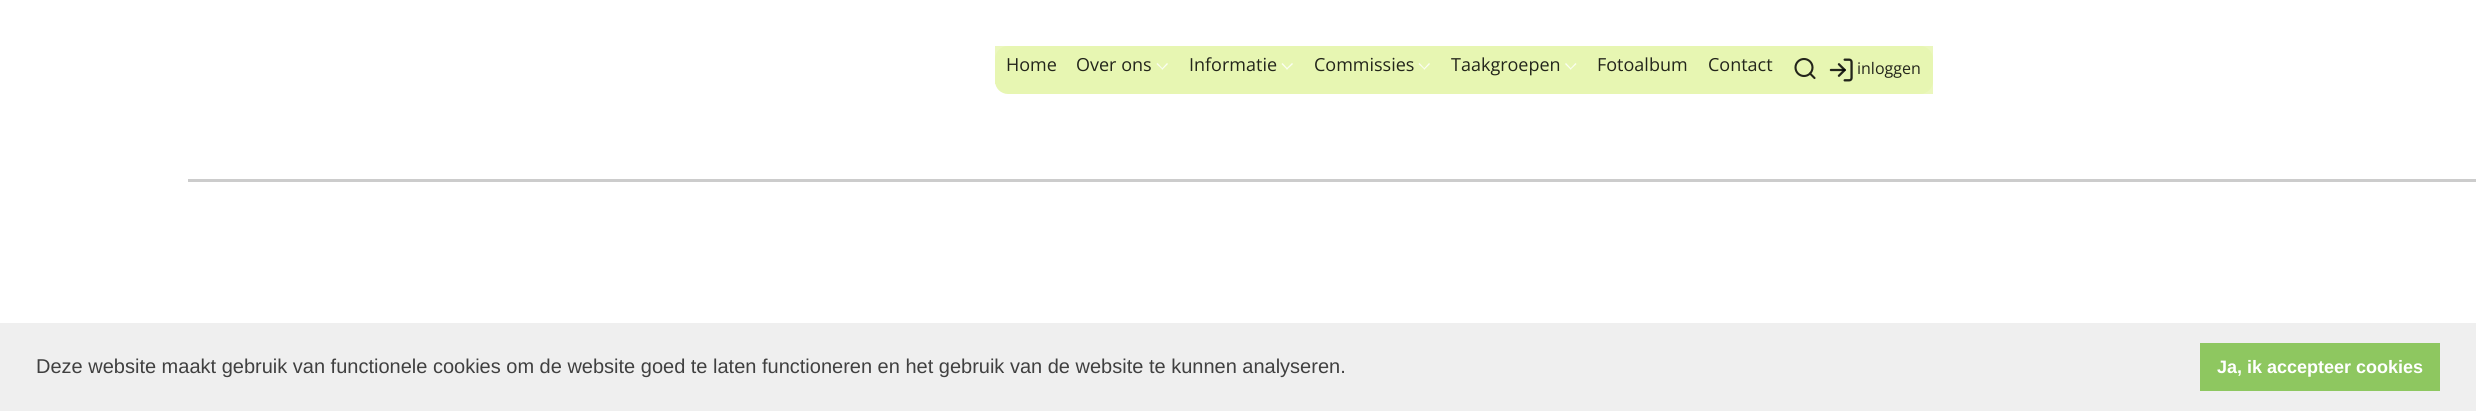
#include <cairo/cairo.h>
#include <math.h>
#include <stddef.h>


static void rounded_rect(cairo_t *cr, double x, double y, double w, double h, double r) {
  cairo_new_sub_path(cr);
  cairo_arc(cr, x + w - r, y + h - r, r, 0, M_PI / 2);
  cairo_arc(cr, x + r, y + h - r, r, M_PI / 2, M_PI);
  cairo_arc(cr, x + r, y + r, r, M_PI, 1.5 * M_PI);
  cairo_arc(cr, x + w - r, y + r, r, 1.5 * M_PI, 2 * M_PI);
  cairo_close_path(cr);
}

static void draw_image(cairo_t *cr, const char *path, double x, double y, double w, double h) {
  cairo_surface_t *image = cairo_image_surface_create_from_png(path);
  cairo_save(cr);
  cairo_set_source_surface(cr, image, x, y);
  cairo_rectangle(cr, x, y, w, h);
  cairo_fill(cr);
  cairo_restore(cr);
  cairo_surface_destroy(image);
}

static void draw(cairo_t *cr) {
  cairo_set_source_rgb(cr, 1, 1, 1);
  cairo_paint(cr);
  cairo_set_source_rgb(cr, 231 / 255.0, 246 / 255.0, 178 / 255.0);
  rounded_rect(cr, 995, 46, 938, 48, 13);
  cairo_fill(cr);
  cairo_set_source_rgba(cr, 231 / 255.0, 246 / 255.0, 178 / 255.0, 0.85);
  cairo_rectangle(cr, 995, 46, 13, 38);
  cairo_fill(cr);
  cairo_set_source_rgb(cr, 251 / 255.0, 254 / 255.0, 243 / 255.0);
  cairo_new_path(cr);
  cairo_move_to(cr, 1168, 64);
  cairo_line_to(cr, 1162.5, 69.5);
  cairo_line_to(cr, 1161.5, 69);
  cairo_line_to(cr, 1167, 63);
  cairo_close_path(cr);
  cairo_fill(cr);
  cairo_new_path(cr);
  cairo_move_to(cr, 1163, 69);
  cairo_line_to(cr, 1162.5, 69.5);
  cairo_line_to(cr, 1156.5, 64);
  cairo_line_to(cr, 1157.5, 63);
  cairo_close_path(cr);
  cairo_fill(cr);
  cairo_new_path(cr);
  cairo_move_to(cr, 1293, 64);
  cairo_line_to(cr, 1287, 69.5);
  cairo_line_to(cr, 1286, 69);
  cairo_line_to(cr, 1292, 63);
  cairo_close_path(cr);
  cairo_fill(cr);
  cairo_new_path(cr);
  cairo_move_to(cr, 1288, 69);
  cairo_line_to(cr, 1287, 69.5);
  cairo_line_to(cr, 1281.5, 64);
  cairo_line_to(cr, 1282.5, 63);
  cairo_close_path(cr);
  cairo_fill(cr);
  cairo_new_path(cr);
  cairo_move_to(cr, 1430, 64);
  cairo_line_to(cr, 1424.5, 69.5);
  cairo_line_to(cr, 1423.5, 69);
  cairo_line_to(cr, 1429, 63);
  cairo_close_path(cr);
  cairo_fill(cr);
  cairo_new_path(cr);
  cairo_move_to(cr, 1425, 69);
  cairo_line_to(cr, 1424.5, 69.5);
  cairo_line_to(cr, 1418.5, 64);
  cairo_line_to(cr, 1419.5, 63);
  cairo_close_path(cr);
  cairo_fill(cr);
  cairo_new_path(cr);
  cairo_move_to(cr, 1576.5, 64);
  cairo_line_to(cr, 1570.5, 69.5);
  cairo_line_to(cr, 1570, 69);
  cairo_line_to(cr, 1575.5, 63);
  cairo_close_path(cr);
  cairo_fill(cr);
  cairo_new_path(cr);
  cairo_move_to(cr, 1571.5, 69);
  cairo_line_to(cr, 1570.5, 69.5);
  cairo_line_to(cr, 1565, 64);
  cairo_line_to(cr, 1566, 63);
  cairo_close_path(cr);
  cairo_fill(cr);
  cairo_arc(cr, 1804, 67.5, 8.5, 0, 2 * M_PI);
  cairo_set_source_rgb(cr, 35 / 255.0, 37 / 255.0, 27 / 255.0);
  cairo_set_line_width(cr, 2.1);
  cairo_stroke(cr);
  cairo_new_path(cr);
  cairo_move_to(cr, 1814.5, 78);
  cairo_line_to(cr, 1810, 73.5);
  cairo_set_line_cap(cr, CAIRO_LINE_CAP_ROUND);
  cairo_set_line_join(cr, CAIRO_LINE_JOIN_ROUND);
  cairo_stroke(cr);
  cairo_set_source_rgba(cr, 231 / 255.0, 246 / 255.0, 178 / 255.0, 0.85);
  cairo_rectangle(cr, 1920, 46, 13, 48);
  cairo_fill(cr);
  draw_image(cr, "images/1.png", 1829, 58, 24, 24);
  cairo_set_source_rgb(cr, 204 / 255.0, 204 / 255.0, 204 / 255.0);
  cairo_rectangle(cr, 188, 179, 2288, 3);
  cairo_fill(cr);
  cairo_set_source_rgb(cr, 239 / 255.0, 239 / 255.0, 239 / 255.0);
  cairo_rectangle(cr, 0, 323, 2476, 88);
  cairo_fill(cr);
  cairo_set_source_rgb(cr, 142 / 255.0, 199 / 255.0, 96 / 255.0);
  cairo_rectangle(cr, 2200, 343, 240, 48);
  cairo_fill(cr);
  cairo_select_font_face(cr, "Open Sans", CAIRO_FONT_SLANT_NORMAL, CAIRO_FONT_WEIGHT_NORMAL);
  cairo_set_font_size(cr, 18);
  cairo_set_source_rgb(cr, 35 / 255.0, 37 / 255.0, 27 / 255.0);
  cairo_move_to(cr, 1006, 71);
  cairo_show_text(cr, "Home");
  cairo_move_to(cr, 1076, 71);
  cairo_show_text(cr, "Over ons");
  cairo_move_to(cr, 1189, 71);
  cairo_show_text(cr, "Informatie");
  cairo_move_to(cr, 1314, 71);
  cairo_show_text(cr, "Commissies");
  cairo_move_to(cr, 1451, 71);
  cairo_show_text(cr, "Taakgroepen");
  cairo_move_to(cr, 1597, 71);
  cairo_show_text(cr, "Fotoalbum");
  cairo_move_to(cr, 1708, 71);
  cairo_show_text(cr, "Contact");
  cairo_set_font_size(cr, 16);
  cairo_move_to(cr, 1857, 74);
  cairo_show_text(cr, "inloggen");
  cairo_select_font_face(cr, "Liberation Sans", CAIRO_FONT_SLANT_NORMAL, CAIRO_FONT_WEIGHT_NORMAL);
  cairo_set_font_size(cr, 20);
  cairo_set_source_rgb(cr, 64 / 255.0, 64 / 255.0, 64 / 255.0);
  cairo_move_to(cr, 36, 373);
  cairo_show_text(cr, "Deze website maakt gebruik van functionele cookies om de website goed te laten functioneren en het gebruik van de website te kunnen analyseren.");
  cairo_select_font_face(cr, "Liberation Sans", CAIRO_FONT_SLANT_NORMAL, CAIRO_FONT_WEIGHT_BOLD);
  cairo_set_font_size(cr, 18);
  cairo_set_source_rgb(cr, 1, 1, 1);
  cairo_move_to(cr, 2217, 373);
  cairo_show_text(cr, "Ja, ik accepteer cookies");
}

int main(void) {
  cairo_surface_t *surface = cairo_image_surface_create(CAIRO_FORMAT_RGB24, 2476, 411);
  cairo_t *cr = cairo_create(surface);
  cairo_font_options_t *options = cairo_font_options_create();
  cairo_font_options_set_hint_metrics(options, CAIRO_HINT_METRICS_OFF);
  cairo_font_options_set_hint_style(options, CAIRO_HINT_STYLE_NONE);
  cairo_set_font_options(cr, options);
  cairo_set_miter_limit(cr, 4);
  draw(cr);
  cairo_surface_write_to_png(surface, "out.png");
  cairo_font_options_destroy(options);
  cairo_destroy(cr);
  cairo_surface_destroy(surface);
  return 0;
}
